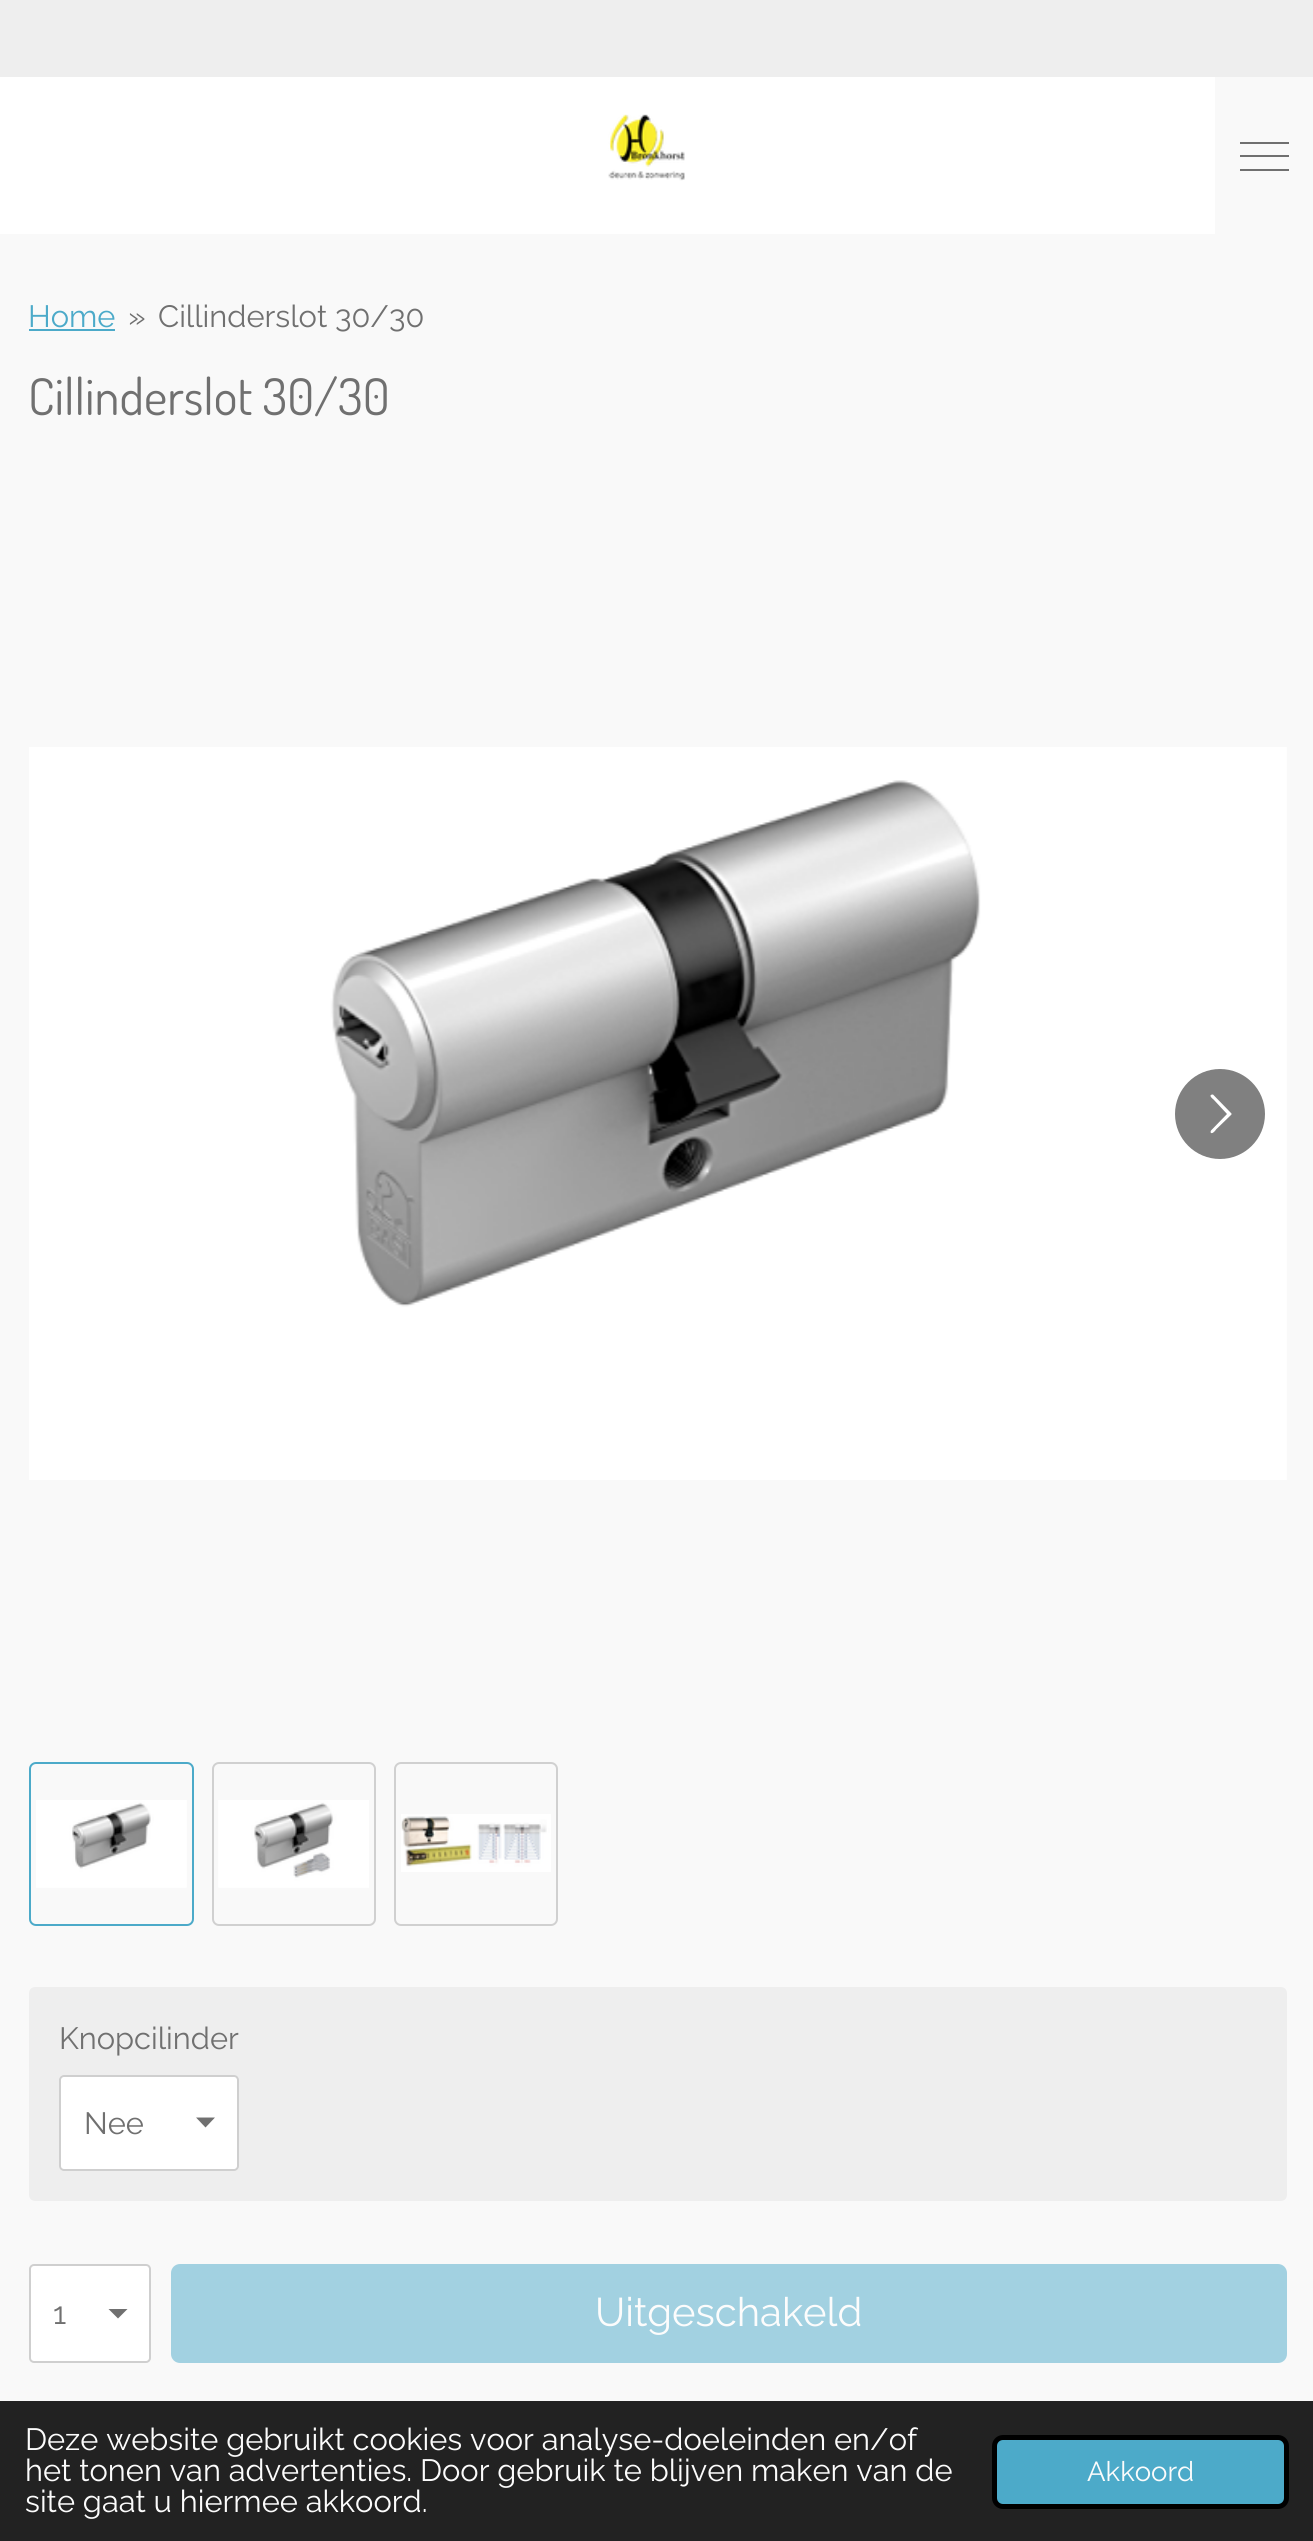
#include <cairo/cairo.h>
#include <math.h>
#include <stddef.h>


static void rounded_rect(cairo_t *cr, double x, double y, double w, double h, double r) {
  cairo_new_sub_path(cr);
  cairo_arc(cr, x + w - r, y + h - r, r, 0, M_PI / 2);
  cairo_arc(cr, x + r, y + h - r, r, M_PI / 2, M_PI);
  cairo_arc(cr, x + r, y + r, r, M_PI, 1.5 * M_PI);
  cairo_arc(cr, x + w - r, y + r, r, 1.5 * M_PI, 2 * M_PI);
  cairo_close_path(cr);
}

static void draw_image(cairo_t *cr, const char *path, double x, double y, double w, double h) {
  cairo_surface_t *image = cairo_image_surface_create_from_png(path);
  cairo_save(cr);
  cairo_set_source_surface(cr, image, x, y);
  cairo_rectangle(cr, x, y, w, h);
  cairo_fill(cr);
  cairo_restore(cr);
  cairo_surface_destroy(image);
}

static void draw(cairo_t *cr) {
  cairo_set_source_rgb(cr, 249 / 255.0, 249 / 255.0, 249 / 255.0);
  cairo_paint(cr);
  cairo_set_source_rgb(cr, 238 / 255.0, 238 / 255.0, 238 / 255.0);
  cairo_rectangle(cr, 0, 0, 1313, 77);
  cairo_fill(cr);
  cairo_set_source_rgb(cr, 1, 1, 1);
  cairo_rectangle(cr, 0, 77, 1215, 157);
  cairo_fill(cr);
  draw_image(cr, "images/1.png", 608, 114, 77, 67);
  cairo_set_source_rgb(cr, 112 / 255.0, 112 / 255.0, 112 / 255.0);
  cairo_rectangle(cr, 1240, 155, 49, 2);
  cairo_fill(cr);
  cairo_rectangle(cr, 1240, 142, 49, 2);
  cairo_fill(cr);
  cairo_rectangle(cr, 1240, 169, 49, 2);
  cairo_fill(cr);
  cairo_set_source_rgb(cr, 76 / 255.0, 170 / 255.0, 201 / 255.0);
  cairo_rectangle(cr, 29, 329, 86, 2);
  cairo_fill(cr);
  draw_image(cr, "images/2.png", 29, 747, 1258, 733);
  cairo_set_source_rgb(cr, 128 / 255.0, 128 / 255.0, 128 / 255.0);
  cairo_arc(cr, 1220, 1114, 45, 0, 2 * M_PI);
  cairo_fill(cr);
  cairo_set_source_rgb(cr, 1, 1, 1);
  cairo_new_path(cr);
  cairo_move_to(cr, 1211, 1130.5);
  cairo_line_to(cr, 1227, 1114);
  cairo_line_to(cr, 1214, 1100);
  cairo_curve_to(cr, 1213, 1099, 1208, 1095.5, 1212, 1094.5);
  cairo_line_to(cr, 1213, 1094.5);
  cairo_line_to(cr, 1231, 1113);
  cairo_line_to(cr, 1231.5, 1113.5);
  cairo_line_to(cr, 1231.5, 1114.5);
  cairo_line_to(cr, 1216, 1129.5);
  cairo_curve_to(cr, 1216, 1130, 1211.5, 1135.5, 1210.5, 1132);
  cairo_close_path(cr);
  cairo_fill(cr);
  rounded_rect(cr, 30, 1763, 163, 162, 6);
  cairo_set_source_rgb(cr, 76 / 255.0, 170 / 255.0, 201 / 255.0);
  cairo_stroke(cr);
  draw_image(cr, "images/3.png", 36, 1800, 151, 88);
  rounded_rect(cr, 213, 1763, 162, 162, 6);
  cairo_set_source_rgb(cr, 208 / 255.0, 208 / 255.0, 208 / 255.0);
  cairo_stroke(cr);
  draw_image(cr, "images/4.png", 218, 1800, 151, 88);
  rounded_rect(cr, 395, 1763, 162, 162, 6);
  cairo_stroke(cr);
  draw_image(cr, "images/5.png", 401, 1814, 150, 58);
  cairo_set_source_rgb(cr, 238 / 255.0, 238 / 255.0, 238 / 255.0);
  rounded_rect(cr, 29, 1987, 1258, 214, 6);
  cairo_fill(cr);
  cairo_set_source_rgb(cr, 1, 1, 1);
  rounded_rect(cr, 59, 2075, 180, 96, 5);
  cairo_fill(cr);
  cairo_set_source_rgb(cr, 112 / 255.0, 112 / 255.0, 112 / 255.0);
  cairo_new_path(cr);
  cairo_move_to(cr, 205.5, 2127.5);
  cairo_line_to(cr, 196, 2117.5);
  cairo_line_to(cr, 215, 2117.5);
  cairo_close_path(cr);
  cairo_fill(cr);
  rounded_rect(cr, 60, 2076, 178, 94, 4);
  cairo_set_source_rgba(cr, 160 / 255.0, 160 / 255.0, 160 / 255.0, 0.5);
  cairo_stroke(cr);
  cairo_set_source_rgb(cr, 1, 1, 1);
  rounded_rect(cr, 29, 2264, 122, 99, 5);
  cairo_fill(cr);
  cairo_set_source_rgb(cr, 112 / 255.0, 112 / 255.0, 112 / 255.0);
  cairo_new_path(cr);
  cairo_move_to(cr, 118, 2318.5);
  cairo_line_to(cr, 108.5, 2309);
  cairo_line_to(cr, 127.5, 2309);
  cairo_close_path(cr);
  cairo_fill(cr);
  rounded_rect(cr, 30, 2265, 120, 97, 4);
  cairo_set_source_rgba(cr, 160 / 255.0, 160 / 255.0, 160 / 255.0, 0.5);
  cairo_stroke(cr);
  cairo_set_source_rgb(cr, 162 / 255.0, 209 / 255.0, 225 / 255.0);
  rounded_rect(cr, 171, 2264, 1116, 99, 9);
  cairo_fill(cr);
  cairo_set_source_rgb(cr, 34 / 255.0, 34 / 255.0, 34 / 255.0);
  cairo_rectangle(cr, 0, 2401, 1313, 140);
  cairo_fill(cr);
  cairo_set_source_rgb(cr, 76 / 255.0, 170 / 255.0, 201 / 255.0);
  rounded_rect(cr, 994.5, 2437.5, 292, 69, 8.5);
  cairo_fill_preserve(cr);
  cairo_set_source_rgb(cr, 0, 0, 0);
  cairo_set_line_width(cr, 5);
  cairo_stroke(cr);
  cairo_select_font_face(cr, "Raleway", CAIRO_FONT_SLANT_NORMAL, CAIRO_FONT_WEIGHT_NORMAL);
  cairo_set_font_size(cr, 30.8);
  cairo_set_source_rgb(cr, 76 / 255.0, 170 / 255.0, 201 / 255.0);
  cairo_move_to(cr, 28, 327);
  cairo_show_text(cr, "Home");
  cairo_set_source_rgb(cr, 112 / 255.0, 112 / 255.0, 112 / 255.0);
  cairo_move_to(cr, 128, 327);
  cairo_show_text(cr, "»");
  cairo_move_to(cr, 158, 327);
  cairo_show_text(cr, "Cillinderslot 30/30");
  cairo_select_font_face(cr, "Dosis", CAIRO_FONT_SLANT_NORMAL, CAIRO_FONT_WEIGHT_NORMAL);
  cairo_set_font_size(cr, 50.5);
  cairo_move_to(cr, 28, 415);
  cairo_show_text(cr, "Cillinderslot 30/30");
  cairo_select_font_face(cr, "Raleway", CAIRO_FONT_SLANT_NORMAL, CAIRO_FONT_WEIGHT_NORMAL);
  cairo_set_font_size(cr, 30.8);
  cairo_move_to(cr, 59, 2049);
  cairo_show_text(cr, "Knopcilinder");
  cairo_move_to(cr, 84, 2134);
  cairo_show_text(cr, "Nee");
  cairo_move_to(cr, 53, 2324);
  cairo_show_text(cr, "1");
  cairo_set_font_size(cr, 40);
  cairo_set_source_rgb(cr, 252 / 255.0, 252 / 255.0, 252 / 255.0);
  cairo_move_to(cr, 595, 2326);
  cairo_show_text(cr, "Uitgeschakeld");
  cairo_set_font_size(cr, 30.8);
  cairo_move_to(cr, 25, 2450);
  cairo_show_text(cr, "Deze website gebruikt cookies voor analyse-doeleinden en/of");
  cairo_move_to(cr, 25, 2481);
  cairo_show_text(cr, "het tonen van advertenties. Door gebruik te blijven maken van de");
  cairo_move_to(cr, 25, 2512);
  cairo_show_text(cr, "site gaat u hiermee akkoord.");
  cairo_set_font_size(cr, 27.5);
  cairo_move_to(cr, 1087, 2481);
  cairo_show_text(cr, "Akkoord");
}

int main(void) {
  cairo_surface_t *surface = cairo_image_surface_create(CAIRO_FORMAT_RGB24, 1313, 2541);
  cairo_t *cr = cairo_create(surface);
  cairo_font_options_t *options = cairo_font_options_create();
  cairo_font_options_set_hint_metrics(options, CAIRO_HINT_METRICS_OFF);
  cairo_font_options_set_hint_style(options, CAIRO_HINT_STYLE_NONE);
  cairo_set_font_options(cr, options);
  cairo_set_miter_limit(cr, 4);
  draw(cr);
  cairo_surface_write_to_png(surface, "out.png");
  cairo_font_options_destroy(options);
  cairo_destroy(cr);
  cairo_surface_destroy(surface);
  return 0;
}
